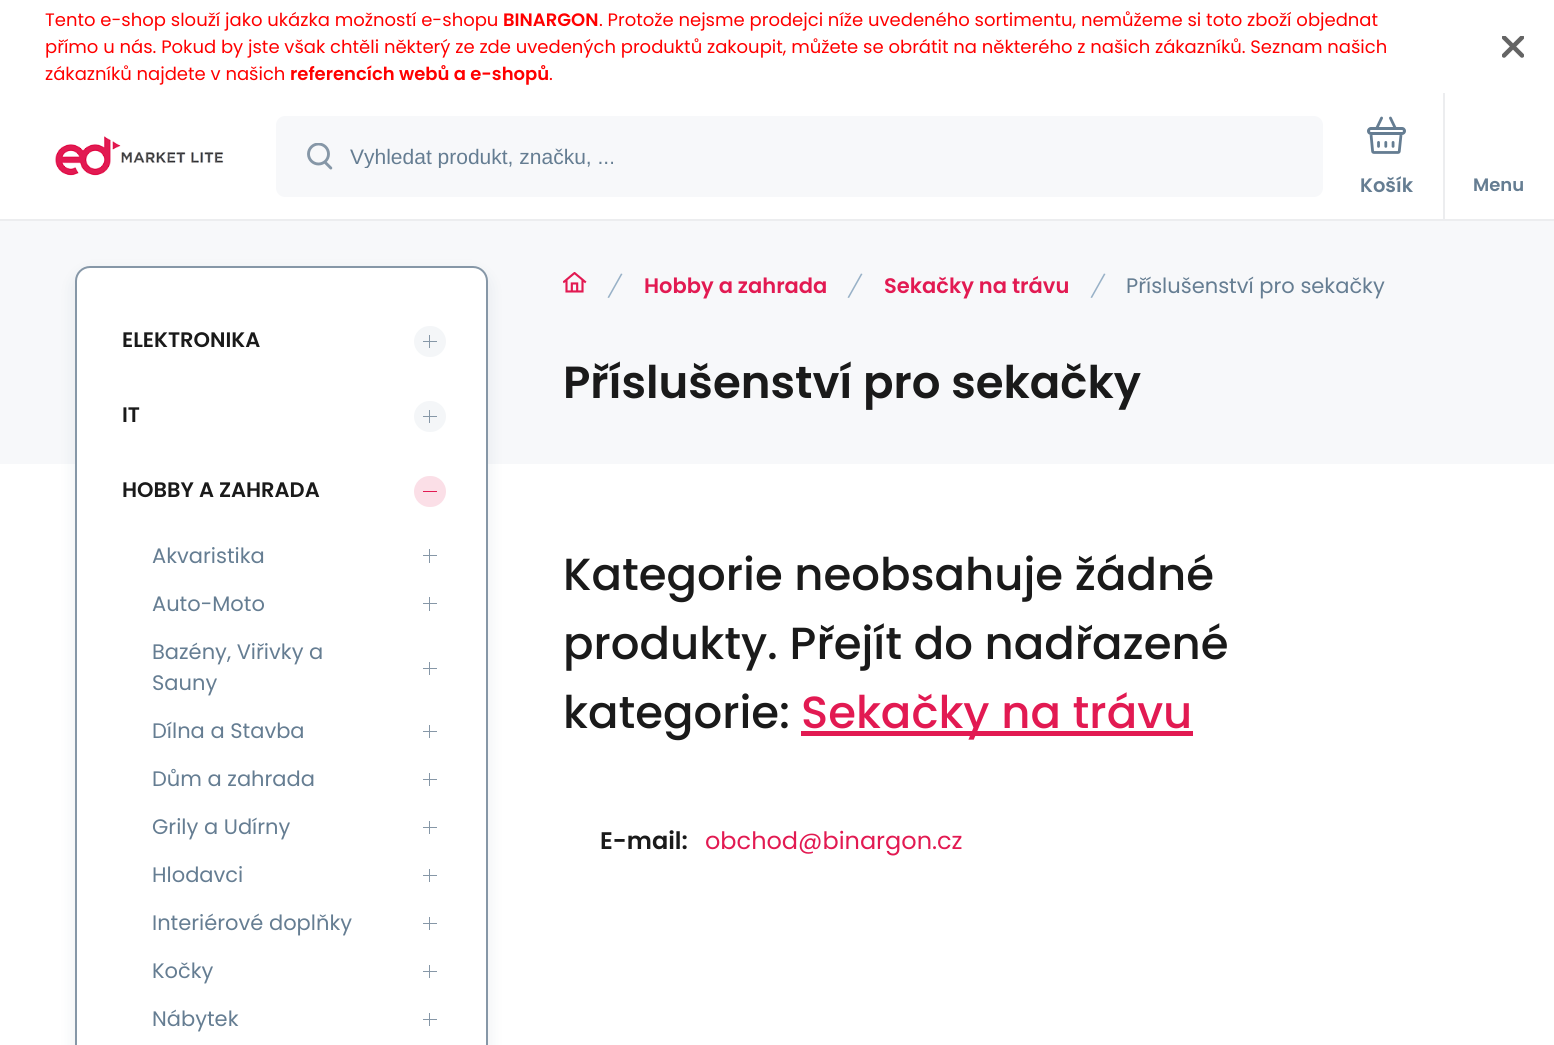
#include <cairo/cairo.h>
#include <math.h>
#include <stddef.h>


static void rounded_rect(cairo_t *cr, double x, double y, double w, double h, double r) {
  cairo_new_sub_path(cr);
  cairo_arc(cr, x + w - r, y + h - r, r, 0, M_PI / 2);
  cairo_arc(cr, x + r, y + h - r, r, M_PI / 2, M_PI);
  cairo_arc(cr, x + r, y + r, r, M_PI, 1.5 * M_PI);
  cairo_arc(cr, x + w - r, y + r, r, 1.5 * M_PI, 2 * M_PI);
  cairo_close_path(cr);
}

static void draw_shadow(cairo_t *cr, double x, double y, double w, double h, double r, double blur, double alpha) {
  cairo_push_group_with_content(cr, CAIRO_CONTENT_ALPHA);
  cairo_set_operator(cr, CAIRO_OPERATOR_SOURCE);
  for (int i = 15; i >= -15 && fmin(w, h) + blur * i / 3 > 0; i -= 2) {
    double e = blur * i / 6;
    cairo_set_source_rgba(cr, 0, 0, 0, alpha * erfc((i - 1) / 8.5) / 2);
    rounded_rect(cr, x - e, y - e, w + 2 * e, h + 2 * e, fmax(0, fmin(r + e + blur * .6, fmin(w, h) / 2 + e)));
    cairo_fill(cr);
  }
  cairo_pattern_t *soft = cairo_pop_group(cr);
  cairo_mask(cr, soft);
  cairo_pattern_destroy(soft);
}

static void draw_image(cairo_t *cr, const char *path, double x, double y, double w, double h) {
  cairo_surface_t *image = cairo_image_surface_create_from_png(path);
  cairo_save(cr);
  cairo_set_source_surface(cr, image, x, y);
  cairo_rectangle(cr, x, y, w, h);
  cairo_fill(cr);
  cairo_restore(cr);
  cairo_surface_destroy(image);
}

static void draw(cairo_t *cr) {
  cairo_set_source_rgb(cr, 1, 1, 1);
  cairo_paint(cr);
  cairo_save(cr);
  cairo_rectangle(cr, 1502, 36, 22, 23);
  cairo_clip(cr);
  cairo_new_path(cr);
  cairo_move_to(cr, 1504, 37.5);
  cairo_line_to(cr, 1522, 55.5);
  cairo_move_to(cr, 1504, 55.5);
  cairo_line_to(cr, 1522, 37.5);
  cairo_set_source_rgb(cr, 100 / 255.0, 100 / 255.0, 100 / 255.0);
  cairo_set_line_width(cr, 4.5);
  cairo_set_line_cap(cr, CAIRO_LINE_CAP_ROUND);
  cairo_stroke(cr);
  cairo_restore(cr);
  cairo_set_source_rgb(cr, 236 / 255.0, 237 / 255.0, 239 / 255.0);
  cairo_rectangle(cr, 0, 219, 1554, 2);
  cairo_fill(cr);
  draw_image(cr, "images/1.png", 55, 136, 169, 40);
  cairo_set_source_rgb(cr, 247 / 255.0, 248 / 255.0, 250 / 255.0);
  rounded_rect(cr, 276, 116, 1047, 81, 9);
  cairo_fill(cr);
  draw_image(cr, "images/2.png", 307, 143, 26, 27);
  draw_image(cr, "images/3.png", 1367, 116, 39, 38);
  cairo_set_source_rgb(cr, 236 / 255.0, 237 / 255.0, 239 / 255.0);
  cairo_rectangle(cr, 1443, 93, 2, 126);
  cairo_fill(cr);
  cairo_set_source_rgb(cr, 247 / 255.0, 248 / 255.0, 250 / 255.0);
  cairo_rectangle(cr, 0, 221, 1554, 243);
  cairo_fill(cr);
  cairo_set_source_rgb(cr, 134 / 255.0, 151 / 255.0, 167 / 255.0);
  draw_shadow(cr, 75, 273, 413, 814, 15, 9, 0.16);
  cairo_set_source_rgb(cr, 1, 1, 1);
  rounded_rect(cr, 76, 267, 411, 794, 14);
  cairo_fill_preserve(cr);
  cairo_set_source_rgb(cr, 134 / 255.0, 151 / 255.0, 167 / 255.0);
  cairo_stroke(cr);
  cairo_set_source_rgb(cr, 244 / 255.0, 246 / 255.0, 248 / 255.0);
  rounded_rect(cr, 414, 326, 32, 31, 15.5);
  cairo_fill(cr);
  cairo_set_source_rgb(cr, 134 / 255.0, 151 / 255.0, 167 / 255.0);
  cairo_rectangle(cr, 423, 341, 14, 1);
  cairo_fill(cr);
  cairo_rectangle(cr, 429, 335, 1, 13);
  cairo_fill(cr);
  cairo_set_source_rgb(cr, 244 / 255.0, 246 / 255.0, 248 / 255.0);
  rounded_rect(cr, 414, 401, 32, 31, 15.5);
  cairo_fill(cr);
  cairo_set_source_rgb(cr, 134 / 255.0, 151 / 255.0, 167 / 255.0);
  cairo_rectangle(cr, 423, 416, 14, 1);
  cairo_fill(cr);
  cairo_rectangle(cr, 429, 410, 1, 13);
  cairo_fill(cr);
  cairo_set_source_rgb(cr, 251 / 255.0, 223 / 255.0, 231 / 255.0);
  rounded_rect(cr, 414, 476, 32, 31, 15.5);
  cairo_fill(cr);
  cairo_set_source_rgb(cr, 226 / 255.0, 26 / 255.0, 82 / 255.0);
  cairo_rectangle(cr, 423, 491, 14, 1);
  cairo_fill(cr);
  cairo_set_source_rgb(cr, 134 / 255.0, 151 / 255.0, 167 / 255.0);
  cairo_rectangle(cr, 423, 555, 14, 1);
  cairo_fill(cr);
  cairo_rectangle(cr, 429, 549, 1, 14);
  cairo_fill(cr);
  cairo_rectangle(cr, 423, 603, 14, 1);
  cairo_fill(cr);
  cairo_rectangle(cr, 429, 597, 1, 14);
  cairo_fill(cr);
  cairo_rectangle(cr, 423, 668, 14, 1);
  cairo_fill(cr);
  cairo_rectangle(cr, 429, 662, 1, 13);
  cairo_fill(cr);
  cairo_rectangle(cr, 423, 731, 14, 1);
  cairo_fill(cr);
  cairo_rectangle(cr, 429, 725, 1, 13);
  cairo_fill(cr);
  cairo_rectangle(cr, 423, 779, 14, 1);
  cairo_fill(cr);
  cairo_rectangle(cr, 429, 773, 1, 13);
  cairo_fill(cr);
  cairo_rectangle(cr, 423, 827, 14, 1);
  cairo_fill(cr);
  cairo_rectangle(cr, 429, 821, 1, 13);
  cairo_fill(cr);
  cairo_rectangle(cr, 423, 875, 14, 1);
  cairo_fill(cr);
  cairo_rectangle(cr, 429, 869, 1, 13);
  cairo_fill(cr);
  cairo_rectangle(cr, 423, 923, 14, 1);
  cairo_fill(cr);
  cairo_rectangle(cr, 429, 917, 1, 13);
  cairo_fill(cr);
  cairo_rectangle(cr, 423, 971, 14, 1);
  cairo_fill(cr);
  cairo_rectangle(cr, 429, 965, 1, 13);
  cairo_fill(cr);
  cairo_rectangle(cr, 423, 1019, 14, 1);
  cairo_fill(cr);
  cairo_rectangle(cr, 429, 1013, 1, 13);
  cairo_fill(cr);
  draw_image(cr, "images/4.png", 563, 272, 24, 21);
  cairo_set_source_rgb(cr, 152 / 255.0, 177 / 255.0, 199 / 255.0);
  cairo_new_path(cr);
  cairo_move_to(cr, 607.5, 297.5);
  cairo_line_to(cr, 621, 273.5);
  cairo_line_to(cr, 622.5, 274);
  cairo_line_to(cr, 609, 298);
  cairo_close_path(cr);
  cairo_fill(cr);
  cairo_new_path(cr);
  cairo_move_to(cr, 847.5, 297.5);
  cairo_line_to(cr, 861, 273.5);
  cairo_line_to(cr, 862.5, 274);
  cairo_line_to(cr, 849, 298);
  cairo_close_path(cr);
  cairo_fill(cr);
  cairo_new_path(cr);
  cairo_move_to(cr, 1090.5, 297.5);
  cairo_line_to(cr, 1104, 273.5);
  cairo_line_to(cr, 1105.5, 274);
  cairo_line_to(cr, 1092, 298);
  cairo_close_path(cr);
  cairo_fill(cr);
  cairo_set_source_rgb(cr, 226 / 255.0, 26 / 255.0, 82 / 255.0);
  cairo_rectangle(cr, 801, 731, 392, 5);
  cairo_fill(cr);
  cairo_select_font_face(cr, "Poppins", CAIRO_FONT_SLANT_NORMAL, CAIRO_FONT_WEIGHT_NORMAL);
  cairo_set_font_size(cr, 18);
  cairo_set_source_rgb(cr, 1, 0, 0);
  cairo_move_to(cr, 45, 26);
  cairo_show_text(cr, "Tento e-shop slouží jako ukázka možností e-shopu");
  cairo_select_font_face(cr, "Poppins SemiBold", CAIRO_FONT_SLANT_NORMAL, CAIRO_FONT_WEIGHT_NORMAL);
  cairo_move_to(cr, 503, 26);
  cairo_show_text(cr, "BINARGON");
  cairo_select_font_face(cr, "Poppins", CAIRO_FONT_SLANT_NORMAL, CAIRO_FONT_WEIGHT_NORMAL);
  cairo_move_to(cr, 599, 26);
  cairo_show_text(cr, ". Protože nejsme prodejci níže uvedeného sortimentu, nemůžeme si toto zboží objednat");
  cairo_move_to(cr, 45, 53);
  cairo_show_text(cr, "přímo u nás. Pokud by jste však chtěli některý ze zde uvedených produktů zakoupit, můžete se obrátit na některého z našich zákazníků. Seznam našich");
  cairo_move_to(cr, 45, 80);
  cairo_show_text(cr, "zákazníků najdete v našich");
  cairo_select_font_face(cr, "Poppins SemiBold", CAIRO_FONT_SLANT_NORMAL, CAIRO_FONT_WEIGHT_NORMAL);
  cairo_move_to(cr, 290, 80);
  cairo_show_text(cr, "referencích webů a e-shopů");
  cairo_select_font_face(cr, "Poppins", CAIRO_FONT_SLANT_NORMAL, CAIRO_FONT_WEIGHT_NORMAL);
  cairo_move_to(cr, 549, 80);
  cairo_show_text(cr, ".");
  cairo_save(cr);
  cairo_rectangle(cr, 350, 144, 808, 24);
  cairo_clip(cr);
  cairo_select_font_face(cr, "Liberation Sans", CAIRO_FONT_SLANT_NORMAL, CAIRO_FONT_WEIGHT_NORMAL);
  cairo_set_font_size(cr, 21);
  cairo_set_source_rgb(cr, 101 / 255.0, 125 / 255.0, 146 / 255.0);
  cairo_move_to(cr, 350, 164);
  cairo_show_text(cr, "Vyhledat produkt, značku, ...");
  cairo_restore(cr);
  cairo_select_font_face(cr, "Poppins SemiBold", CAIRO_FONT_SLANT_NORMAL, CAIRO_FONT_WEIGHT_NORMAL);
  cairo_set_font_size(cr, 19.5);
  cairo_set_source_rgb(cr, 101 / 255.0, 125 / 255.0, 146 / 255.0);
  cairo_move_to(cr, 1360, 192);
  cairo_show_text(cr, "Košík");
  cairo_set_font_size(cr, 18);
  cairo_move_to(cr, 1473, 191);
  cairo_show_text(cr, "Menu");
  cairo_set_font_size(cr, 21);
  cairo_set_source_rgb(cr, 26 / 255.0, 26 / 255.0, 26 / 255.0);
  cairo_move_to(cr, 122, 347);
  cairo_show_text(cr, "ELEKTRONIKA");
  cairo_move_to(cr, 122, 422);
  cairo_show_text(cr, "IT");
  cairo_move_to(cr, 122, 497);
  cairo_show_text(cr, "HOBBY A ZAHRADA");
  cairo_select_font_face(cr, "Poppins", CAIRO_FONT_SLANT_NORMAL, CAIRO_FONT_WEIGHT_NORMAL);
  cairo_set_source_rgb(cr, 101 / 255.0, 125 / 255.0, 146 / 255.0);
  cairo_move_to(cr, 152, 563);
  cairo_show_text(cr, "Akvaristika");
  cairo_move_to(cr, 152, 611);
  cairo_show_text(cr, "Auto-Moto");
  cairo_move_to(cr, 152, 659);
  cairo_show_text(cr, "Bazény, Viřivky a");
  cairo_move_to(cr, 152, 690);
  cairo_show_text(cr, "Sauny");
  cairo_move_to(cr, 152, 738);
  cairo_show_text(cr, "Dílna a Stavba");
  cairo_move_to(cr, 152, 786);
  cairo_show_text(cr, "Dům a zahrada");
  cairo_move_to(cr, 152, 834);
  cairo_show_text(cr, "Grily a Udírny");
  cairo_move_to(cr, 152, 882);
  cairo_show_text(cr, "Hlodavci");
  cairo_move_to(cr, 152, 930);
  cairo_show_text(cr, "Interiérové doplňky");
  cairo_move_to(cr, 152, 978);
  cairo_show_text(cr, "Kočky");
  cairo_move_to(cr, 152, 1026);
  cairo_show_text(cr, "Nábytek");
  cairo_select_font_face(cr, "Poppins SemiBold", CAIRO_FONT_SLANT_NORMAL, CAIRO_FONT_WEIGHT_NORMAL);
  cairo_set_source_rgb(cr, 226 / 255.0, 26 / 255.0, 82 / 255.0);
  cairo_move_to(cr, 644, 293);
  cairo_show_text(cr, "Hobby a zahrada");
  cairo_move_to(cr, 884, 293);
  cairo_show_text(cr, "Sekačky na trávu");
  cairo_select_font_face(cr, "Poppins", CAIRO_FONT_SLANT_NORMAL, CAIRO_FONT_WEIGHT_NORMAL);
  cairo_set_source_rgb(cr, 101 / 255.0, 125 / 255.0, 146 / 255.0);
  cairo_move_to(cr, 1126, 293);
  cairo_show_text(cr, "Příslušenství pro sekačky");
  cairo_select_font_face(cr, "Poppins SemiBold", CAIRO_FONT_SLANT_NORMAL, CAIRO_FONT_WEIGHT_NORMAL);
  cairo_set_font_size(cr, 45);
  cairo_set_source_rgb(cr, 26 / 255.0, 26 / 255.0, 26 / 255.0);
  cairo_move_to(cr, 563, 398);
  cairo_show_text(cr, "Příslušenství pro sekačky");
  cairo_select_font_face(cr, "Poppins Medium", CAIRO_FONT_SLANT_NORMAL, CAIRO_FONT_WEIGHT_NORMAL);
  cairo_move_to(cr, 563, 590);
  cairo_show_text(cr, "Kategorie neobsahuje žádné");
  cairo_move_to(cr, 563, 659);
  cairo_show_text(cr, "produkty. Přejít do nadřazené");
  cairo_move_to(cr, 563, 728);
  cairo_show_text(cr, "kategorie:");
  cairo_set_source_rgb(cr, 226 / 255.0, 26 / 255.0, 82 / 255.0);
  cairo_move_to(cr, 801, 728);
  cairo_show_text(cr, "Sekačky na trávu");
  cairo_select_font_face(cr, "Poppins SemiBold", CAIRO_FONT_SLANT_NORMAL, CAIRO_FONT_WEIGHT_NORMAL);
  cairo_set_font_size(cr, 24);
  cairo_set_source_rgb(cr, 26 / 255.0, 26 / 255.0, 26 / 255.0);
  cairo_move_to(cr, 600, 849);
  cairo_show_text(cr, "E-mail:");
  cairo_select_font_face(cr, "Poppins", CAIRO_FONT_SLANT_NORMAL, CAIRO_FONT_WEIGHT_NORMAL);
  cairo_set_source_rgb(cr, 226 / 255.0, 26 / 255.0, 82 / 255.0);
  cairo_move_to(cr, 705, 849);
  cairo_show_text(cr, "obchod@binargon.cz");
}

int main(void) {
  cairo_surface_t *surface = cairo_image_surface_create(CAIRO_FORMAT_RGB24, 1554, 1045);
  cairo_t *cr = cairo_create(surface);
  cairo_font_options_t *options = cairo_font_options_create();
  cairo_font_options_set_hint_metrics(options, CAIRO_HINT_METRICS_OFF);
  cairo_font_options_set_hint_style(options, CAIRO_HINT_STYLE_NONE);
  cairo_set_font_options(cr, options);
  cairo_set_miter_limit(cr, 4);
  draw(cr);
  cairo_surface_write_to_png(surface, "out.png");
  cairo_font_options_destroy(options);
  cairo_destroy(cr);
  cairo_surface_destroy(surface);
  return 0;
}
